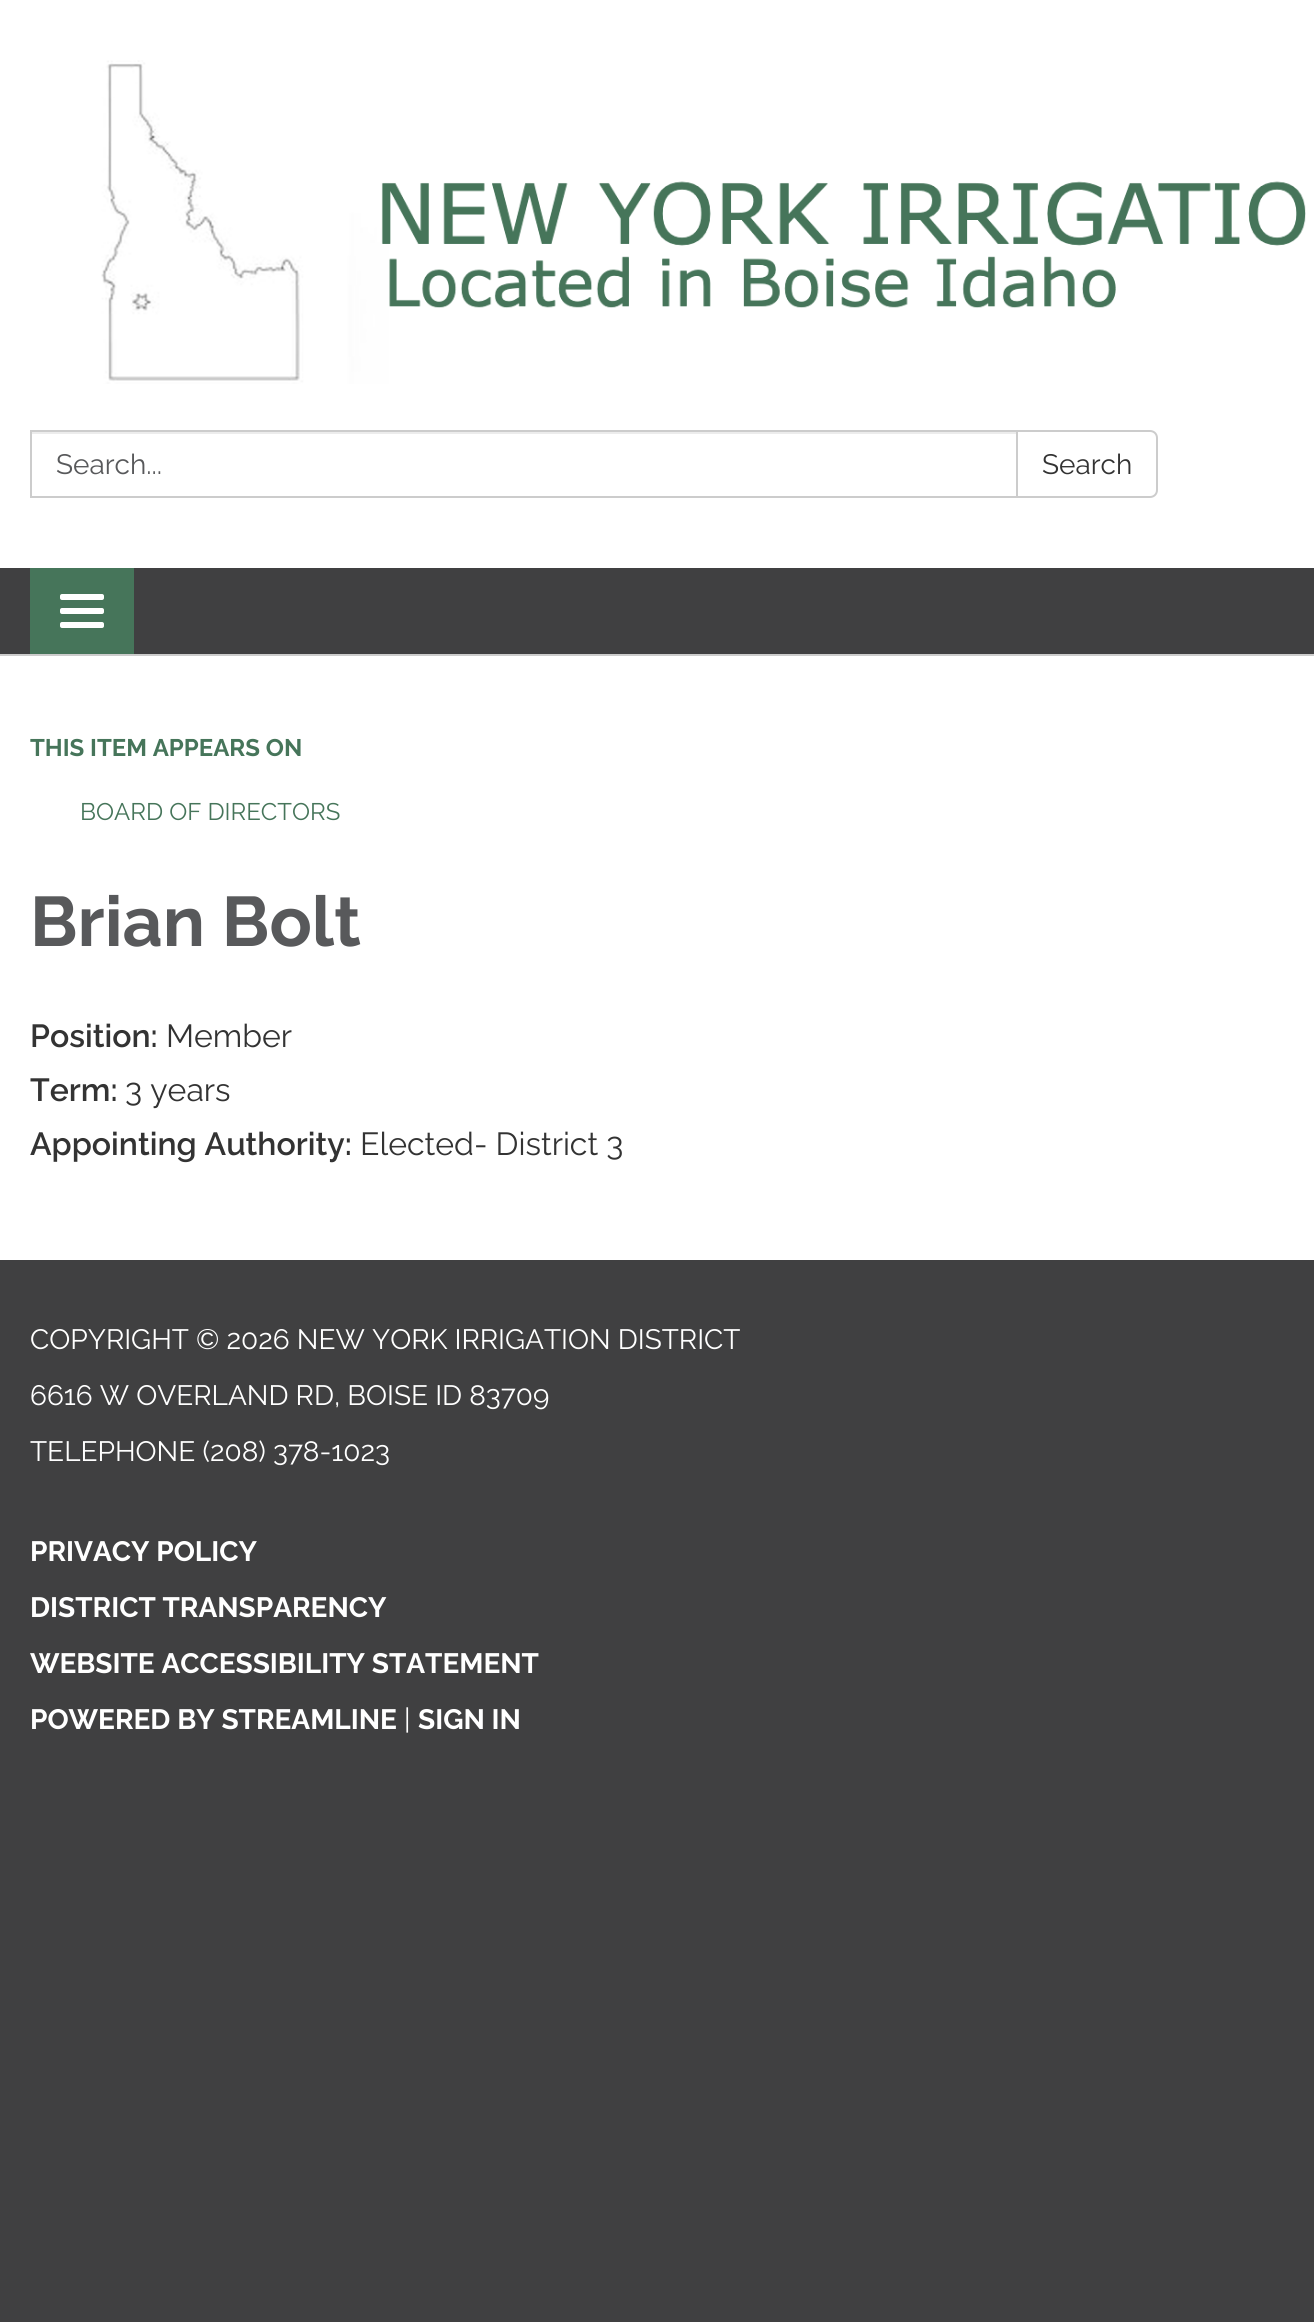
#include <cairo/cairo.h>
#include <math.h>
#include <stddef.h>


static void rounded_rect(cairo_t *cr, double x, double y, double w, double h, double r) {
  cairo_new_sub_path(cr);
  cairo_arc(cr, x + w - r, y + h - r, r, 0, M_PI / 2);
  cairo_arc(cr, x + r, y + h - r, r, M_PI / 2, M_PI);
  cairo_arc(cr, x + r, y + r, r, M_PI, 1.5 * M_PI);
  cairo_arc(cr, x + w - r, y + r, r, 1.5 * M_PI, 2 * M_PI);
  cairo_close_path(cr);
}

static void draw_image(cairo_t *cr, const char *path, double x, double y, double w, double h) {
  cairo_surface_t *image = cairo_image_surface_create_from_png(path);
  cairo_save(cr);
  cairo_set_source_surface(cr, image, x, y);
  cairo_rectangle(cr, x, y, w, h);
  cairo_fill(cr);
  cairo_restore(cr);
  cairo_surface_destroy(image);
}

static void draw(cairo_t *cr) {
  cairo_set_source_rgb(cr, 64 / 255.0, 64 / 255.0, 65 / 255.0);
  cairo_paint(cr);
  cairo_set_source_rgb(cr, 1, 1, 1);
  cairo_rectangle(cr, 0, 0, 1314, 568);
  cairo_fill(cr);
  draw_image(cr, "images/1.png", 101, 60, 1205, 324);
  cairo_set_source_rgb(cr, 236 / 255.0, 236 / 255.0, 236 / 255.0);
  cairo_rectangle(cr, 32, 432, 984, 2);
  cairo_fill(cr);
  cairo_rectangle(cr, 31, 431, 986, 66);
  cairo_set_source_rgb(cr, 204 / 255.0, 204 / 255.0, 204 / 255.0);
  cairo_stroke(cr);
  cairo_set_source_rgb(cr, 1, 1, 1);
  cairo_new_path(cr);
  cairo_move_to(cr, 1017, 431);
  cairo_line_to(cr, 1150, 431);
  cairo_curve_to(cr, 1154, 431, 1157, 434, 1157, 438);
  cairo_line_to(cr, 1157, 490);
  cairo_curve_to(cr, 1157, 494, 1154, 497, 1150, 497);
  cairo_line_to(cr, 1017, 497);
  cairo_close_path(cr);
  cairo_fill_preserve(cr);
  cairo_set_source_rgb(cr, 204 / 255.0, 204 / 255.0, 204 / 255.0);
  cairo_stroke(cr);
  cairo_set_source_rgb(cr, 70 / 255.0, 117 / 255.0, 90 / 255.0);
  cairo_rectangle(cr, 30, 568, 104, 86);
  cairo_fill(cr);
  cairo_set_source_rgb(cr, 1, 1, 1);
  rounded_rect(cr, 60, 594, 44, 6, 2);
  cairo_fill(cr);
  rounded_rect(cr, 60, 608, 44, 6, 2);
  cairo_fill(cr);
  rounded_rect(cr, 60, 622, 44, 6, 2);
  cairo_fill(cr);
  cairo_rectangle(cr, 0, 656, 1314, 604);
  cairo_fill(cr);
  cairo_set_source_rgb(cr, 204 / 255.0, 204 / 255.0, 204 / 255.0);
  cairo_rectangle(cr, 0, 654, 1314, 2);
  cairo_fill(cr);
  cairo_select_font_face(cr, "Raleway", CAIRO_FONT_SLANT_NORMAL, CAIRO_FONT_WEIGHT_NORMAL);
  cairo_set_font_size(cr, 28);
  cairo_set_source_rgb(cr, 88 / 255.0, 89 / 255.0, 91 / 255.0);
  cairo_move_to(cr, 56, 474);
  cairo_show_text(cr, "Search...");
  cairo_set_source_rgb(cr, 51 / 255.0, 51 / 255.0, 51 / 255.0);
  cairo_move_to(cr, 1042, 474);
  cairo_show_text(cr, "Search");
  cairo_select_font_face(cr, "Raleway", CAIRO_FONT_SLANT_NORMAL, CAIRO_FONT_WEIGHT_BOLD);
  cairo_set_font_size(cr, 24);
  cairo_set_source_rgb(cr, 70 / 255.0, 117 / 255.0, 90 / 255.0);
  cairo_move_to(cr, 30, 756);
  cairo_show_text(cr, "THIS ITEM APPEARS ON");
  cairo_select_font_face(cr, "Raleway", CAIRO_FONT_SLANT_NORMAL, CAIRO_FONT_WEIGHT_NORMAL);
  cairo_move_to(cr, 80, 820);
  cairo_show_text(cr, "BOARD OF DIRECTORS");
  cairo_select_font_face(cr, "Raleway", CAIRO_FONT_SLANT_NORMAL, CAIRO_FONT_WEIGHT_BOLD);
  cairo_set_font_size(cr, 70);
  cairo_set_source_rgb(cr, 88 / 255.0, 89 / 255.0, 91 / 255.0);
  cairo_move_to(cr, 30, 946);
  cairo_show_text(cr, "Brian Bolt");
  cairo_select_font_face(cr, "Raleway SemiBold", CAIRO_FONT_SLANT_NORMAL, CAIRO_FONT_WEIGHT_NORMAL);
  cairo_set_font_size(cr, 32);
  cairo_set_source_rgb(cr, 51 / 255.0, 51 / 255.0, 51 / 255.0);
  cairo_move_to(cr, 30, 1047);
  cairo_show_text(cr, "Position:");
  cairo_select_font_face(cr, "Raleway", CAIRO_FONT_SLANT_NORMAL, CAIRO_FONT_WEIGHT_NORMAL);
  cairo_move_to(cr, 166, 1047);
  cairo_show_text(cr, "Member");
  cairo_select_font_face(cr, "Raleway SemiBold", CAIRO_FONT_SLANT_NORMAL, CAIRO_FONT_WEIGHT_NORMAL);
  cairo_move_to(cr, 30, 1101);
  cairo_show_text(cr, "Term:");
  cairo_select_font_face(cr, "Raleway", CAIRO_FONT_SLANT_NORMAL, CAIRO_FONT_WEIGHT_NORMAL);
  cairo_move_to(cr, 125, 1101);
  cairo_show_text(cr, "3 years");
  cairo_select_font_face(cr, "Raleway SemiBold", CAIRO_FONT_SLANT_NORMAL, CAIRO_FONT_WEIGHT_NORMAL);
  cairo_move_to(cr, 30, 1155);
  cairo_show_text(cr, "Appointing Authority:");
  cairo_select_font_face(cr, "Raleway", CAIRO_FONT_SLANT_NORMAL, CAIRO_FONT_WEIGHT_NORMAL);
  cairo_move_to(cr, 360, 1155);
  cairo_show_text(cr, "Elected- District 3");
  cairo_set_font_size(cr, 28);
  cairo_set_source_rgb(cr, 1, 1, 1);
  cairo_move_to(cr, 30, 1349);
  cairo_show_text(cr, "COPYRIGHT © 2026 NEW YORK IRRIGATION DISTRICT");
  cairo_move_to(cr, 30, 1405);
  cairo_show_text(cr, "6616 W OVERLAND RD, BOISE ID 83709");
  cairo_move_to(cr, 30, 1461);
  cairo_show_text(cr, "TELEPHONE (208) 378-1023");
  cairo_select_font_face(cr, "Raleway", CAIRO_FONT_SLANT_NORMAL, CAIRO_FONT_WEIGHT_BOLD);
  cairo_move_to(cr, 30, 1561);
  cairo_show_text(cr, "PRIVACY POLICY");
  cairo_move_to(cr, 30, 1617);
  cairo_show_text(cr, "DISTRICT TRANSPARENCY");
  cairo_move_to(cr, 30, 1673);
  cairo_show_text(cr, "WEBSITE ACCESSIBILITY STATEMENT");
  cairo_move_to(cr, 30, 1729);
  cairo_show_text(cr, "POWERED BY STREAMLINE");
  cairo_select_font_face(cr, "Raleway", CAIRO_FONT_SLANT_NORMAL, CAIRO_FONT_WEIGHT_NORMAL);
  cairo_move_to(cr, 404, 1729);
  cairo_show_text(cr, "|");
  cairo_select_font_face(cr, "Raleway", CAIRO_FONT_SLANT_NORMAL, CAIRO_FONT_WEIGHT_BOLD);
  cairo_move_to(cr, 418, 1729);
  cairo_show_text(cr, "SIGN IN");
}

int main(void) {
  cairo_surface_t *surface = cairo_image_surface_create(CAIRO_FORMAT_RGB24, 1314, 2322);
  cairo_t *cr = cairo_create(surface);
  cairo_font_options_t *options = cairo_font_options_create();
  cairo_font_options_set_hint_metrics(options, CAIRO_HINT_METRICS_OFF);
  cairo_font_options_set_hint_style(options, CAIRO_HINT_STYLE_NONE);
  cairo_set_font_options(cr, options);
  cairo_set_miter_limit(cr, 4);
  draw(cr);
  cairo_surface_write_to_png(surface, "out.png");
  cairo_font_options_destroy(options);
  cairo_destroy(cr);
  cairo_surface_destroy(surface);
  return 0;
}
